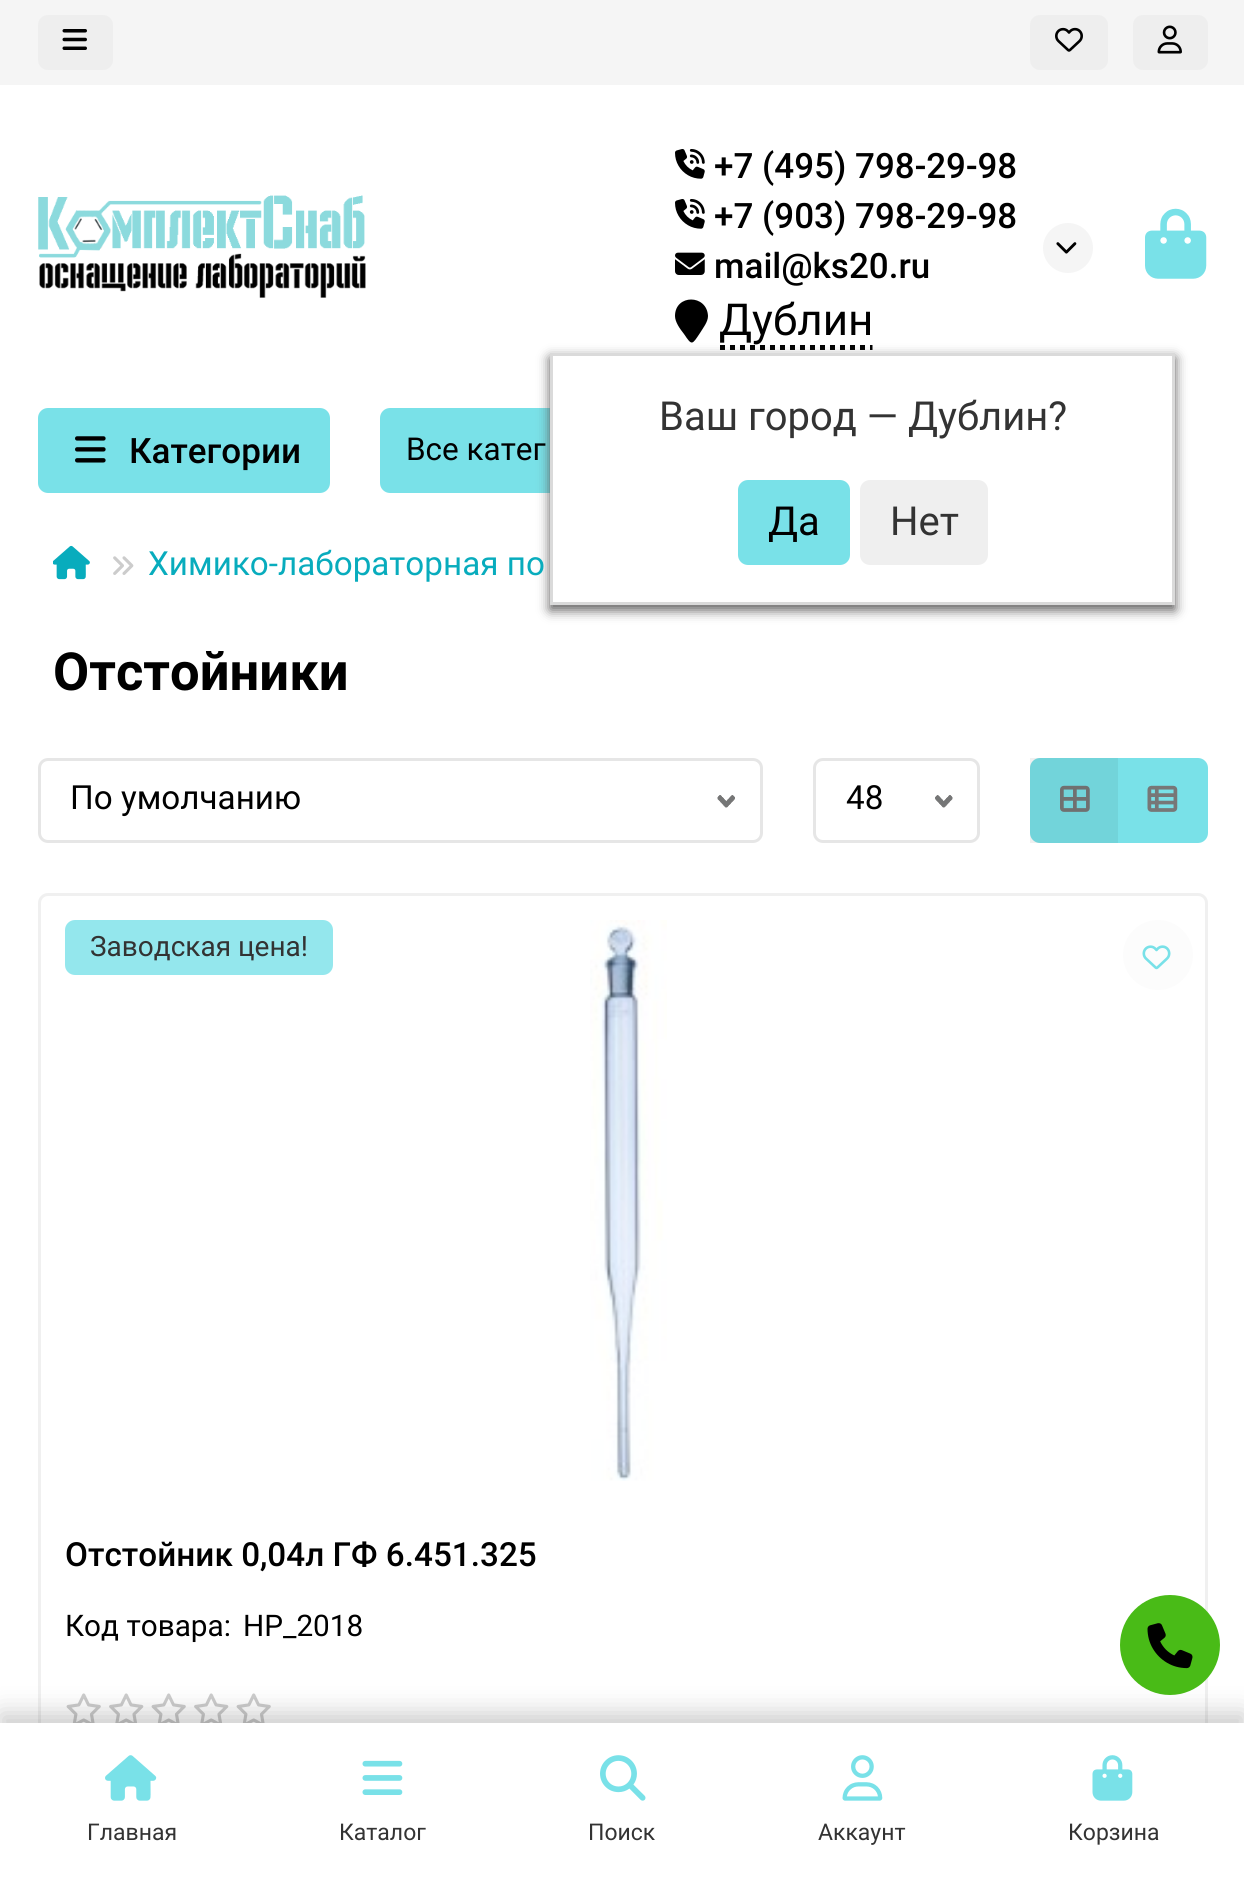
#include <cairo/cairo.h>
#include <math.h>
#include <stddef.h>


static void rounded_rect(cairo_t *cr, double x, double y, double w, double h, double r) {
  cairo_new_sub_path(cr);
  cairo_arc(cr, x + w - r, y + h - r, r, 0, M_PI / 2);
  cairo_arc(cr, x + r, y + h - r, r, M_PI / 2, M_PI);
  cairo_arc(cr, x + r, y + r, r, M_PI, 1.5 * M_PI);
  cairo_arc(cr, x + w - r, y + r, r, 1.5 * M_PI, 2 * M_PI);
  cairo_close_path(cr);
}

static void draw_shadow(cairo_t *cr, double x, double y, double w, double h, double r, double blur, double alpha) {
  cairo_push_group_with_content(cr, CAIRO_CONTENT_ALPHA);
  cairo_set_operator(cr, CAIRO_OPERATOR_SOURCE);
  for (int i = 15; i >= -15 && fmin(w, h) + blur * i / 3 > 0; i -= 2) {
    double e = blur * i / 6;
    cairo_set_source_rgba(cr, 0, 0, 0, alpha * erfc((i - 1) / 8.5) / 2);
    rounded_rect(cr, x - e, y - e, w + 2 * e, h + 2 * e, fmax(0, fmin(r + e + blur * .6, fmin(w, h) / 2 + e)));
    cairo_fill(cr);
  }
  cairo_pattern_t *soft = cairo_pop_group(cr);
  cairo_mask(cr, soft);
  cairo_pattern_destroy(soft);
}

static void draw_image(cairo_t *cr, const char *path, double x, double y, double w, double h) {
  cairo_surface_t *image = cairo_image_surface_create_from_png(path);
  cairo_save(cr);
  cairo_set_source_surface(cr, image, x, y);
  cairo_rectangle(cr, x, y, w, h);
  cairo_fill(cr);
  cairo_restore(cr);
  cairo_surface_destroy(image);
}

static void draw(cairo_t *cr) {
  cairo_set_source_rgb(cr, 1, 1, 1);
  cairo_paint(cr);
  cairo_set_source_rgb(cr, 245 / 255.0, 245 / 255.0, 245 / 255.0);
  cairo_rectangle(cr, 0, 0, 1244, 85);
  cairo_fill(cr);
  cairo_set_source_rgb(cr, 238 / 255.0, 238 / 255.0, 238 / 255.0);
  rounded_rect(cr, 38, 15, 75, 55, 10);
  cairo_fill(cr);
  draw_image(cr, "images/1.png", 62, 29, 25, 21);
  rounded_rect(cr, 1030, 15, 78, 55, 10);
  cairo_fill(cr);
  draw_image(cr, "images/2.png", 1055, 27, 28, 25);
  rounded_rect(cr, 1133, 15, 75, 55, 10);
  cairo_fill(cr);
  draw_image(cr, "images/3.png", 1157, 25, 25, 29);
  cairo_set_source_rgb(cr, 121 / 255.0, 225 / 255.0, 232 / 255.0);
  rounded_rect(cr, 38, 408, 292, 85, 10);
  cairo_fill(cr);
  draw_image(cr, "images/4.png", 75, 436, 31, 27);
  cairo_new_path(cr);
  cairo_move_to(cr, 390, 408);
  cairo_line_to(cr, 643, 408);
  cairo_line_to(cr, 643, 493);
  cairo_line_to(cr, 390, 493);
  cairo_curve_to(cr, 384.5, 493, 380, 488.5, 380, 483);
  cairo_line_to(cr, 380, 418);
  cairo_curve_to(cr, 380, 412.5, 384.5, 408, 390, 408);
  cairo_close_path(cr);
  cairo_fill(cr);
  draw_image(cr, "images/5.png", 38, 195, 328, 103);
  draw_image(cr, "images/6.png", 675, 149, 30, 30);
  draw_image(cr, "images/6.png", 675, 199, 30, 30);
  draw_image(cr, "images/7.png", 675, 252, 30, 23);
  cairo_set_source_rgb(cr, 245 / 255.0, 245 / 255.0, 245 / 255.0);
  cairo_arc(cr, 1068, 248, 25, 0, 2 * M_PI);
  cairo_fill(cr);
  draw_image(cr, "images/8.png", 1056, 242, 21, 12);
  cairo_set_source_rgb(cr, 0, 0, 0);
  cairo_new_path(cr);
  cairo_move_to(cr, 708, 316);
  cairo_curve_to(cr, 708, 322, 703, 328, 700, 333);
  cairo_curve_to(cr, 692, 345, 692, 346, 684, 334);
  cairo_curve_to(cr, 680, 329, 675, 322, 675, 316);
  cairo_curve_to(cr, 675, 294, 707, 294, 708, 316);
  cairo_close_path(cr);
  cairo_fill(cr);
  cairo_new_path(cr);
  cairo_move_to(cr, 720, 347.5);
  cairo_line_to(cr, 872.5, 347.5);
  cairo_set_line_width(cr, 5);
  cairo_set_dash(cr, (double[]){5, 5}, 2, 0);
  cairo_stroke(cr);
  cairo_set_source_rgb(cr, 91 / 255.0, 90 / 255.0, 90 / 255.0);
  draw_shadow(cr, 550, 358, 625, 252, 0, 6, 1);
  cairo_set_source_rgb(cr, 1, 1, 1);
  cairo_rectangle(cr, 551.5, 354.5, 622, 249);
  cairo_fill_preserve(cr);
  cairo_set_source_rgb(cr, 218 / 255.0, 218 / 255.0, 218 / 255.0);
  cairo_set_line_width(cr, 3);
  cairo_set_dash(cr, NULL, 0, 0);
  cairo_stroke(cr);
  cairo_set_source_rgb(cr, 121 / 255.0, 225 / 255.0, 232 / 255.0);
  rounded_rect(cr, 738, 480, 112, 85, 10);
  cairo_fill(cr);
  cairo_set_source_rgb(cr, 239 / 255.0, 239 / 255.0, 239 / 255.0);
  rounded_rect(cr, 860, 480, 128, 85, 10);
  cairo_fill(cr);
  draw_image(cr, "images/9.png", 1145, 208, 62, 71);
  draw_image(cr, "images/10.png", 53, 545, 37, 35);
  draw_image(cr, "images/11.png", 113, 556, 21, 19);
  draw_image(cr, "images/12.png", 717, 795, 18, 13);
  rounded_rect(cr, 39.5, 759.5, 722, 82, 8.5);
  cairo_set_source_rgb(cr, 230 / 255.0, 230 / 255.0, 230 / 255.0);
  cairo_stroke(cr);
  draw_image(cr, "images/13.png", 935, 795, 18, 13);
  rounded_rect(cr, 814.5, 759.5, 164, 82, 8.5);
  cairo_stroke(cr);
  cairo_set_source_rgb(cr, 121 / 255.0, 225 / 255.0, 232 / 255.0);
  cairo_new_path(cr);
  cairo_move_to(cr, 1040, 758);
  cairo_line_to(cr, 1120, 758);
  cairo_line_to(cr, 1120, 843);
  cairo_line_to(cr, 1040, 843);
  cairo_curve_to(cr, 1034.5, 843, 1030, 838.5, 1030, 833);
  cairo_line_to(cr, 1030, 768);
  cairo_curve_to(cr, 1030, 762.5, 1034.5, 758, 1040, 758);
  cairo_close_path(cr);
  cairo_fill(cr);
  draw_image(cr, "images/14.png", 1060, 785, 30, 27);
  cairo_set_source_rgba(cr, 0, 0, 0, 0.06);
  cairo_rectangle(cr, 1030, 758, 88, 85);
  cairo_fill(cr);
  cairo_set_source_rgb(cr, 121 / 255.0, 225 / 255.0, 232 / 255.0);
  cairo_new_path(cr);
  cairo_move_to(cr, 1118, 758);
  cairo_line_to(cr, 1198, 758);
  cairo_curve_to(cr, 1203.5, 758, 1208, 762.5, 1208, 768);
  cairo_line_to(cr, 1208, 833);
  cairo_curve_to(cr, 1208, 838.5, 1203.5, 843, 1198, 843);
  cairo_line_to(cr, 1118, 843);
  cairo_close_path(cr);
  cairo_fill(cr);
  draw_image(cr, "images/15.png", 1147, 785, 31, 27);
  rounded_rect(cr, 39.5, 894.5, 1167, 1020, 8.5);
  cairo_set_source_rgb(cr, 240 / 255.0, 240 / 255.0, 240 / 255.0);
  cairo_stroke(cr);
  cairo_set_source_rgb(cr, 148 / 255.0, 231 / 255.0, 237 / 255.0);
  rounded_rect(cr, 65, 920, 268, 55, 10);
  cairo_fill(cr);
  draw_image(cr, "images/16.png", 590, 920, 77, 561);
  cairo_set_source_rgb(cr, 252 / 255.0, 252 / 255.0, 252 / 255.0);
  cairo_arc(cr, 1158, 955, 35, 0, 2 * M_PI);
  cairo_fill(cr);
  draw_image(cr, "images/17.png", 1142, 945, 29, 25);
  draw_image(cr, "images/18.png", 66, 1693, 35, 30);
  draw_image(cr, "images/19.png", 109, 1693, 35, 30);
  draw_image(cr, "images/18.png", 151, 1693, 35, 30);
  draw_image(cr, "images/19.png", 194, 1693, 35, 30);
  draw_image(cr, "images/18.png", 236, 1693, 35, 30);
  cairo_set_source_rgb(cr, 0, 0, 0);
  draw_shadow(cr, 0, 1713, 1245, 182, 0, 12.5, 0.2);
  cairo_set_source_rgb(cr, 73 / 255.0, 187 / 255.0, 23 / 255.0);
  cairo_arc(cr, 1170, 1645, 50, 0, 2 * M_PI);
  cairo_fill(cr);
  draw_image(cr, "images/20.png", 1147, 1623, 46, 46);
  cairo_set_source_rgb(cr, 1, 1, 1);
  cairo_rectangle(cr, 0, 1723, 1244, 180);
  cairo_fill(cr);
  draw_image(cr, "images/21.png", 105, 1755, 52, 46);
  draw_image(cr, "images/22.png", 362, 1760, 41, 35);
  draw_image(cr, "images/23.png", 600, 1755, 46, 46);
  draw_image(cr, "images/24.png", 842, 1755, 41, 46);
  draw_image(cr, "images/25.png", 1092, 1755, 41, 46);
  cairo_select_font_face(cr, "Roboto Medium", CAIRO_FONT_SLANT_NORMAL, CAIRO_FONT_WEIGHT_NORMAL);
  cairo_set_font_size(cr, 35);
  cairo_set_source_rgb(cr, 0, 0, 0);
  cairo_move_to(cr, 129, 463);
  cairo_show_text(cr, "Категории");
  cairo_select_font_face(cr, "Roboto", CAIRO_FONT_SLANT_NORMAL, CAIRO_FONT_WEIGHT_NORMAL);
  cairo_set_font_size(cr, 31.5);
  cairo_move_to(cr, 406, 460);
  cairo_show_text(cr, "Все катег");
  cairo_select_font_face(cr, "Roboto Medium", CAIRO_FONT_SLANT_NORMAL, CAIRO_FONT_WEIGHT_NORMAL);
  cairo_set_font_size(cr, 35);
  cairo_move_to(cr, 714, 178);
  cairo_show_text(cr, "+7 (495) 798-29-98");
  cairo_move_to(cr, 714, 228);
  cairo_show_text(cr, "+7 (903) 798-29-98");
  cairo_move_to(cr, 714, 278);
  cairo_show_text(cr, "mail@ks20.ru");
  cairo_select_font_face(cr, "Roboto", CAIRO_FONT_SLANT_NORMAL, CAIRO_FONT_WEIGHT_NORMAL);
  cairo_set_font_size(cr, 44);
  cairo_move_to(cr, 719, 335);
  cairo_show_text(cr, "Дублин");
  cairo_set_font_size(cr, 40);
  cairo_set_source_rgb(cr, 51 / 255.0, 51 / 255.0, 51 / 255.0);
  cairo_move_to(cr, 659, 430);
  cairo_show_text(cr, "Ваш город — Дублин?");
  cairo_set_source_rgb(cr, 0, 0, 0);
  cairo_move_to(cr, 768, 535);
  cairo_show_text(cr, "Да");
  cairo_set_source_rgb(cr, 51 / 255.0, 51 / 255.0, 51 / 255.0);
  cairo_move_to(cr, 890, 535);
  cairo_show_text(cr, "Нет");
  cairo_set_font_size(cr, 33.25);
  cairo_set_source_rgb(cr, 8 / 255.0, 172 / 255.0, 189 / 255.0);
  cairo_move_to(cr, 148, 575);
  cairo_show_text(cr, "Химико-лабораторная по");
  cairo_select_font_face(cr, "Roboto", CAIRO_FONT_SLANT_NORMAL, CAIRO_FONT_WEIGHT_BOLD);
  cairo_set_font_size(cr, 52.5);
  cairo_set_source_rgb(cr, 0, 0, 0);
  cairo_move_to(cr, 53, 690);
  cairo_show_text(cr, "Отстойники");
  cairo_select_font_face(cr, "Roboto", CAIRO_FONT_SLANT_NORMAL, CAIRO_FONT_WEIGHT_NORMAL);
  cairo_set_font_size(cr, 33.25);
  cairo_move_to(cr, 70, 809);
  cairo_show_text(cr, "По умолчанию");
  cairo_move_to(cr, 846, 809);
  cairo_show_text(cr, "48");
  cairo_set_font_size(cr, 28);
  cairo_set_source_rgb(cr, 51 / 255.0, 51 / 255.0, 51 / 255.0);
  cairo_move_to(cr, 90, 956);
  cairo_show_text(cr, "Заводская цена!");
  cairo_select_font_face(cr, "Roboto Medium", CAIRO_FONT_SLANT_NORMAL, CAIRO_FONT_WEIGHT_NORMAL);
  cairo_set_font_size(cr, 33.25);
  cairo_set_source_rgb(cr, 0, 0, 0);
  cairo_move_to(cr, 65, 1566);
  cairo_show_text(cr, "Отстойник 0,04л ГФ 6.451.325");
  cairo_select_font_face(cr, "Roboto", CAIRO_FONT_SLANT_NORMAL, CAIRO_FONT_WEIGHT_NORMAL);
  cairo_set_font_size(cr, 29.75);
  cairo_move_to(cr, 65, 1636);
  cairo_show_text(cr, "Код товара:");
  cairo_move_to(cr, 243, 1636);
  cairo_show_text(cr, "HP_2018");
  cairo_set_font_size(cr, 23);
  cairo_set_source_rgb(cr, 51 / 255.0, 51 / 255.0, 51 / 255.0);
  cairo_move_to(cr, 87, 1840);
  cairo_show_text(cr, "Главная");
  cairo_move_to(cr, 339, 1840);
  cairo_show_text(cr, "Каталог");
  cairo_move_to(cr, 588, 1840);
  cairo_show_text(cr, "Поиск");
  cairo_move_to(cr, 818, 1840);
  cairo_show_text(cr, "Аккаунт");
  cairo_move_to(cr, 1068, 1840);
  cairo_show_text(cr, "Корзина");
}

int main(void) {
  cairo_surface_t *surface = cairo_image_surface_create(CAIRO_FORMAT_RGB24, 1244, 1903);
  cairo_t *cr = cairo_create(surface);
  cairo_font_options_t *options = cairo_font_options_create();
  cairo_font_options_set_hint_metrics(options, CAIRO_HINT_METRICS_OFF);
  cairo_font_options_set_hint_style(options, CAIRO_HINT_STYLE_NONE);
  cairo_set_font_options(cr, options);
  cairo_set_miter_limit(cr, 4);
  draw(cr);
  cairo_surface_write_to_png(surface, "out.png");
  cairo_font_options_destroy(options);
  cairo_destroy(cr);
  cairo_surface_destroy(surface);
  return 0;
}
